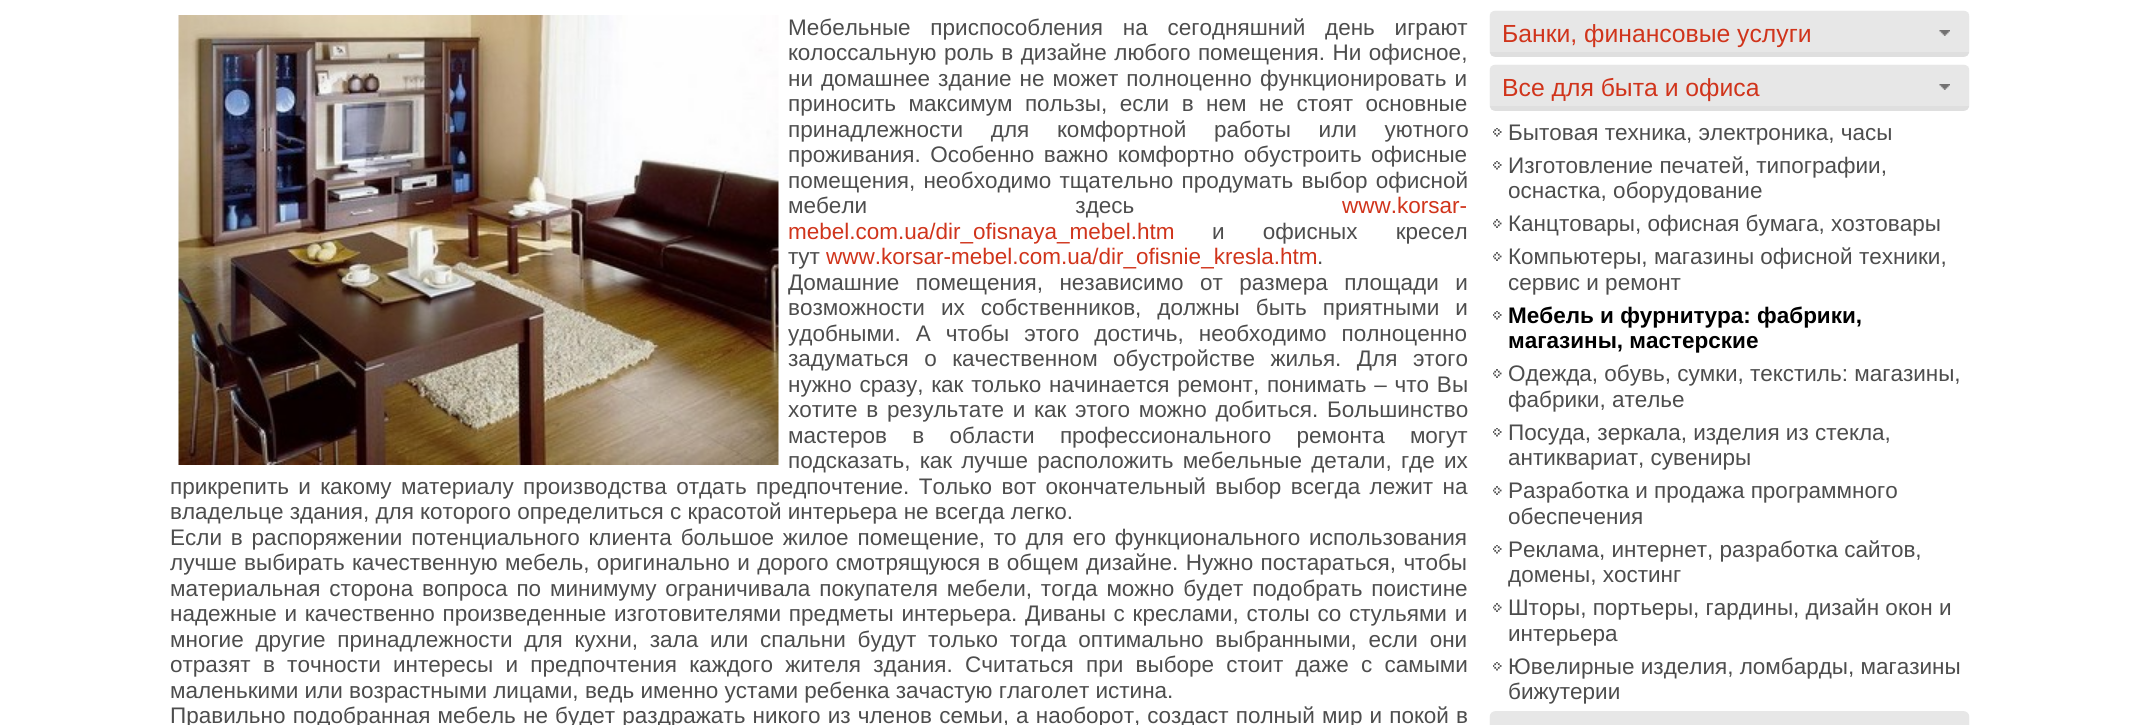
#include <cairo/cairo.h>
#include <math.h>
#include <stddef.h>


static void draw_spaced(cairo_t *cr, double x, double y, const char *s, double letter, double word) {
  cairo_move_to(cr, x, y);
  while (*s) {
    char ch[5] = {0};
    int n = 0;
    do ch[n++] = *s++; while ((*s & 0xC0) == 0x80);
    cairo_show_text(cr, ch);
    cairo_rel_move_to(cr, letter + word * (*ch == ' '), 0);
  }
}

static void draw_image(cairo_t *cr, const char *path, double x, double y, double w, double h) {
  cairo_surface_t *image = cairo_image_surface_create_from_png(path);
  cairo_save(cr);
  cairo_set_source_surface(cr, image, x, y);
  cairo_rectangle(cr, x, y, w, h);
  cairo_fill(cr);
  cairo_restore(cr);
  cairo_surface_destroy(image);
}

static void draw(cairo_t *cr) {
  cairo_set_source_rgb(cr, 1, 1, 1);
  cairo_paint(cr);
  draw_image(cr, "images/1.png", 178, 15, 601, 450);
  draw_image(cr, "images/2.png", 1489, 10, 481, 47);
  draw_image(cr, "images/2.png", 1489, 64, 481, 47);
  draw_image(cr, "images/3.png", 1493, 128, 9, 9);
  draw_image(cr, "images/3.png", 1493, 161, 9, 9);
  draw_image(cr, "images/4.png", 1493, 219, 9, 9);
  draw_image(cr, "images/4.png", 1493, 252, 9, 9);
  draw_image(cr, "images/3.png", 1493, 311, 9, 9);
  draw_image(cr, "images/4.png", 1493, 369, 9, 9);
  draw_image(cr, "images/3.png", 1493, 428, 9, 9);
  draw_image(cr, "images/4.png", 1493, 486, 9, 9);
  draw_image(cr, "images/3.png", 1493, 545, 9, 9);
  draw_image(cr, "images/4.png", 1493, 603, 9, 9);
  draw_image(cr, "images/3.png", 1493, 662, 9, 9);
  draw_image(cr, "images/5.png", 1489, 711, 481, 14);
  cairo_select_font_face(cr, "Liberation Sans", CAIRO_FONT_SLANT_NORMAL, CAIRO_FONT_WEIGHT_NORMAL);
  cairo_set_font_size(cr, 22.5);
  cairo_set_source_rgb(cr, 77 / 255.0, 77 / 255.0, 77 / 255.0);
  draw_spaced(cr, 788, 35, "Мебельные приспособления на сегодняшний день играют", 0, 13.5);
  draw_spaced(cr, 788, 60, "колоссальную роль в дизайне любого помещения. Ни офисное,", 0, 1.25);
  draw_spaced(cr, 788, 86, "ни домашнее здание не может полноценно функционировать и", 0, 1.75);
  draw_spaced(cr, 788, 111, "приносить максимум пользы, если в нем не стоят основные", 0, 6.25);
  draw_spaced(cr, 788, 137, "принадлежности для комфортной работы или уютного", 0, 21.5);
  draw_spaced(cr, 788, 162, "проживания. Особенно важно комфортно обустроить офисные", 0, 3.25);
  draw_spaced(cr, 788, 188, "помещения, необходимо тщательно продумать выбор офисной", 0, 2);
  draw_spaced(cr, 788, 213, "мебели здесь", 0, 202);
  cairo_set_source_rgb(cr, 208 / 255.0, 52 / 255.0, 27 / 255.0);
  cairo_move_to(cr, 1342, 213);
  cairo_show_text(cr, "www.korsar-");
  cairo_move_to(cr, 788, 239);
  cairo_show_text(cr, "mebel.com.ua/dir_ofisnaya_mebel.htm");
  cairo_set_source_rgb(cr, 77 / 255.0, 77 / 255.0, 77 / 255.0);
  draw_spaced(cr, 1212, 239, "и офисных кресел", 0, 32);
  cairo_move_to(cr, 788, 264);
  cairo_show_text(cr, "тут");
  cairo_set_source_rgb(cr, 208 / 255.0, 52 / 255.0, 27 / 255.0);
  cairo_move_to(cr, 826, 264);
  cairo_show_text(cr, "www.korsar-mebel.com.ua/dir_ofisnie_kresla.htm");
  cairo_set_source_rgb(cr, 77 / 255.0, 77 / 255.0, 77 / 255.0);
  cairo_move_to(cr, 1317, 264);
  cairo_show_text(cr, ".");
  draw_spaced(cr, 788, 290, "Домашние помещения, независимо от размера площади и", 0, 10.25);
  draw_spaced(cr, 788, 315, "возможности их собственников, должны быть приятными и", 0, 9.75);
  draw_spaced(cr, 788, 341, "удобными. А чтобы этого достичь, необходимо полноценно", 0, 8.75);
  draw_spaced(cr, 788, 366, "задуматься о качественном обустройстве жилья. Для этого", 0, 9.25);
  draw_spaced(cr, 788, 392, "нужно сразу, как только начинается ремонт, понимать – что Вы", 0, 1.5);
  draw_spaced(cr, 788, 417, "хотите в результате и как этого можно добиться. Большинство", 0, 2.5);
  draw_spaced(cr, 788, 443, "мастеров в области профессионального ремонта могут", 0, 19);
  draw_spaced(cr, 788, 468, "подсказать, как лучше расположить мебельные детали, где их", 0, 3);
  draw_spaced(cr, 170, 494, "прикрепить и какому материалу производства отдать предпочтение. Только вот окончательный выбор всегда лежит на", 0, 3.1);
  cairo_move_to(cr, 170, 519);
  cairo_show_text(cr, "владельце здания, для которого определиться с красотой интерьера не всегда легко.");
  draw_spaced(cr, 170, 545, "Если в распоряжении потенциального клиента большое жилое помещение, то для его функционального использования", 0, 2.6);
  draw_spaced(cr, 170, 570, "лучше выбирать качественную мебель, оригинально и дорого смотрящуюся в общем дизайне. Нужно постараться, чтобы", 0, 1.1);
  draw_spaced(cr, 170, 596, "материальная сторона вопроса по минимуму ограничивала покупателя мебели, тогда можно будет подобрать поистине", 0, 2.6);
  draw_spaced(cr, 170, 621, "надежные и качественно произведенные изготовителями предметы интерьера. Диваны с креслами, столы со стульями и", 0, 1.5);
  draw_spaced(cr, 170, 647, "многие другие принадлежности для кухни, зала или спальни будут только тогда оптимально выбранными, если они", 0, 5.5);
  draw_spaced(cr, 170, 672, "отразят в точности интересы и предпочтения каждого жителя здания. Считаться при выборе стоит даже с самыми", 0, 6);
  cairo_move_to(cr, 170, 698);
  cairo_show_text(cr, "маленькими или возрастными лицами, ведь именно устами ребенка зачастую глаголет истина.");
  draw_spaced(cr, 170, 723, "Правильно подобранная мебель не будет раздражать никого из членов семьи, а наоборот, создаст полный мир и покой в", 0, 0.9);
  cairo_set_font_size(cr, 24.75);
  cairo_set_source_rgb(cr, 208 / 255.0, 52 / 255.0, 27 / 255.0);
  cairo_move_to(cr, 1502, 42);
  cairo_show_text(cr, "Банки, финансовые услуги");
  cairo_move_to(cr, 1502, 96);
  cairo_show_text(cr, "Все для быта и офиса");
  cairo_set_font_size(cr, 22.5);
  cairo_set_source_rgb(cr, 77 / 255.0, 77 / 255.0, 77 / 255.0);
  cairo_move_to(cr, 1508, 140);
  cairo_show_text(cr, "Бытовая техника, электроника, часы");
  cairo_move_to(cr, 1508, 173);
  cairo_show_text(cr, "Изготовление печатей, типографии,");
  cairo_move_to(cr, 1508, 198);
  cairo_show_text(cr, "оснастка, оборудование");
  cairo_move_to(cr, 1508, 231);
  cairo_show_text(cr, "Канцтовары, офисная бумага, хозтовары");
  cairo_move_to(cr, 1508, 264);
  cairo_show_text(cr, "Компьютеры, магазины офисной техники,");
  cairo_move_to(cr, 1508, 290);
  cairo_show_text(cr, "сервис и ремонт");
  cairo_select_font_face(cr, "Liberation Sans", CAIRO_FONT_SLANT_NORMAL, CAIRO_FONT_WEIGHT_BOLD);
  cairo_set_source_rgb(cr, 0, 0, 0);
  cairo_move_to(cr, 1508, 323);
  cairo_show_text(cr, "Мебель и фурнитура: фабрики,");
  cairo_move_to(cr, 1508, 348);
  cairo_show_text(cr, "магазины, мастерские");
  cairo_select_font_face(cr, "Liberation Sans", CAIRO_FONT_SLANT_NORMAL, CAIRO_FONT_WEIGHT_NORMAL);
  cairo_set_source_rgb(cr, 77 / 255.0, 77 / 255.0, 77 / 255.0);
  cairo_move_to(cr, 1508, 381);
  cairo_show_text(cr, "Одежда, обувь, сумки, текстиль: магазины,");
  cairo_move_to(cr, 1508, 407);
  cairo_show_text(cr, "фабрики, ателье");
  cairo_move_to(cr, 1508, 440);
  cairo_show_text(cr, "Посуда, зеркала, изделия из стекла,");
  cairo_move_to(cr, 1508, 465);
  cairo_show_text(cr, "антиквариат, сувениры");
  cairo_move_to(cr, 1508, 498);
  cairo_show_text(cr, "Разработка и продажа программного");
  cairo_move_to(cr, 1508, 524);
  cairo_show_text(cr, "обеспечения");
  cairo_move_to(cr, 1508, 557);
  cairo_show_text(cr, "Реклама, интернет, разработка сайтов,");
  cairo_move_to(cr, 1508, 582);
  cairo_show_text(cr, "домены, хостинг");
  cairo_move_to(cr, 1508, 615);
  cairo_show_text(cr, "Шторы, портьеры, гардины, дизайн окон и");
  cairo_move_to(cr, 1508, 641);
  cairo_show_text(cr, "интерьера");
  cairo_move_to(cr, 1508, 674);
  cairo_show_text(cr, "Ювелирные изделия, ломбарды, магазины");
  cairo_move_to(cr, 1508, 699);
  cairo_show_text(cr, "бижутерии");
}

int main(void) {
  cairo_surface_t *surface = cairo_image_surface_create(CAIRO_FORMAT_RGB24, 2139, 725);
  cairo_t *cr = cairo_create(surface);
  cairo_font_options_t *options = cairo_font_options_create();
  cairo_font_options_set_hint_metrics(options, CAIRO_HINT_METRICS_OFF);
  cairo_font_options_set_hint_style(options, CAIRO_HINT_STYLE_NONE);
  cairo_set_font_options(cr, options);
  cairo_set_miter_limit(cr, 4);
  draw(cr);
  cairo_surface_write_to_png(surface, "out.png");
  cairo_font_options_destroy(options);
  cairo_destroy(cr);
  cairo_surface_destroy(surface);
  return 0;
}
